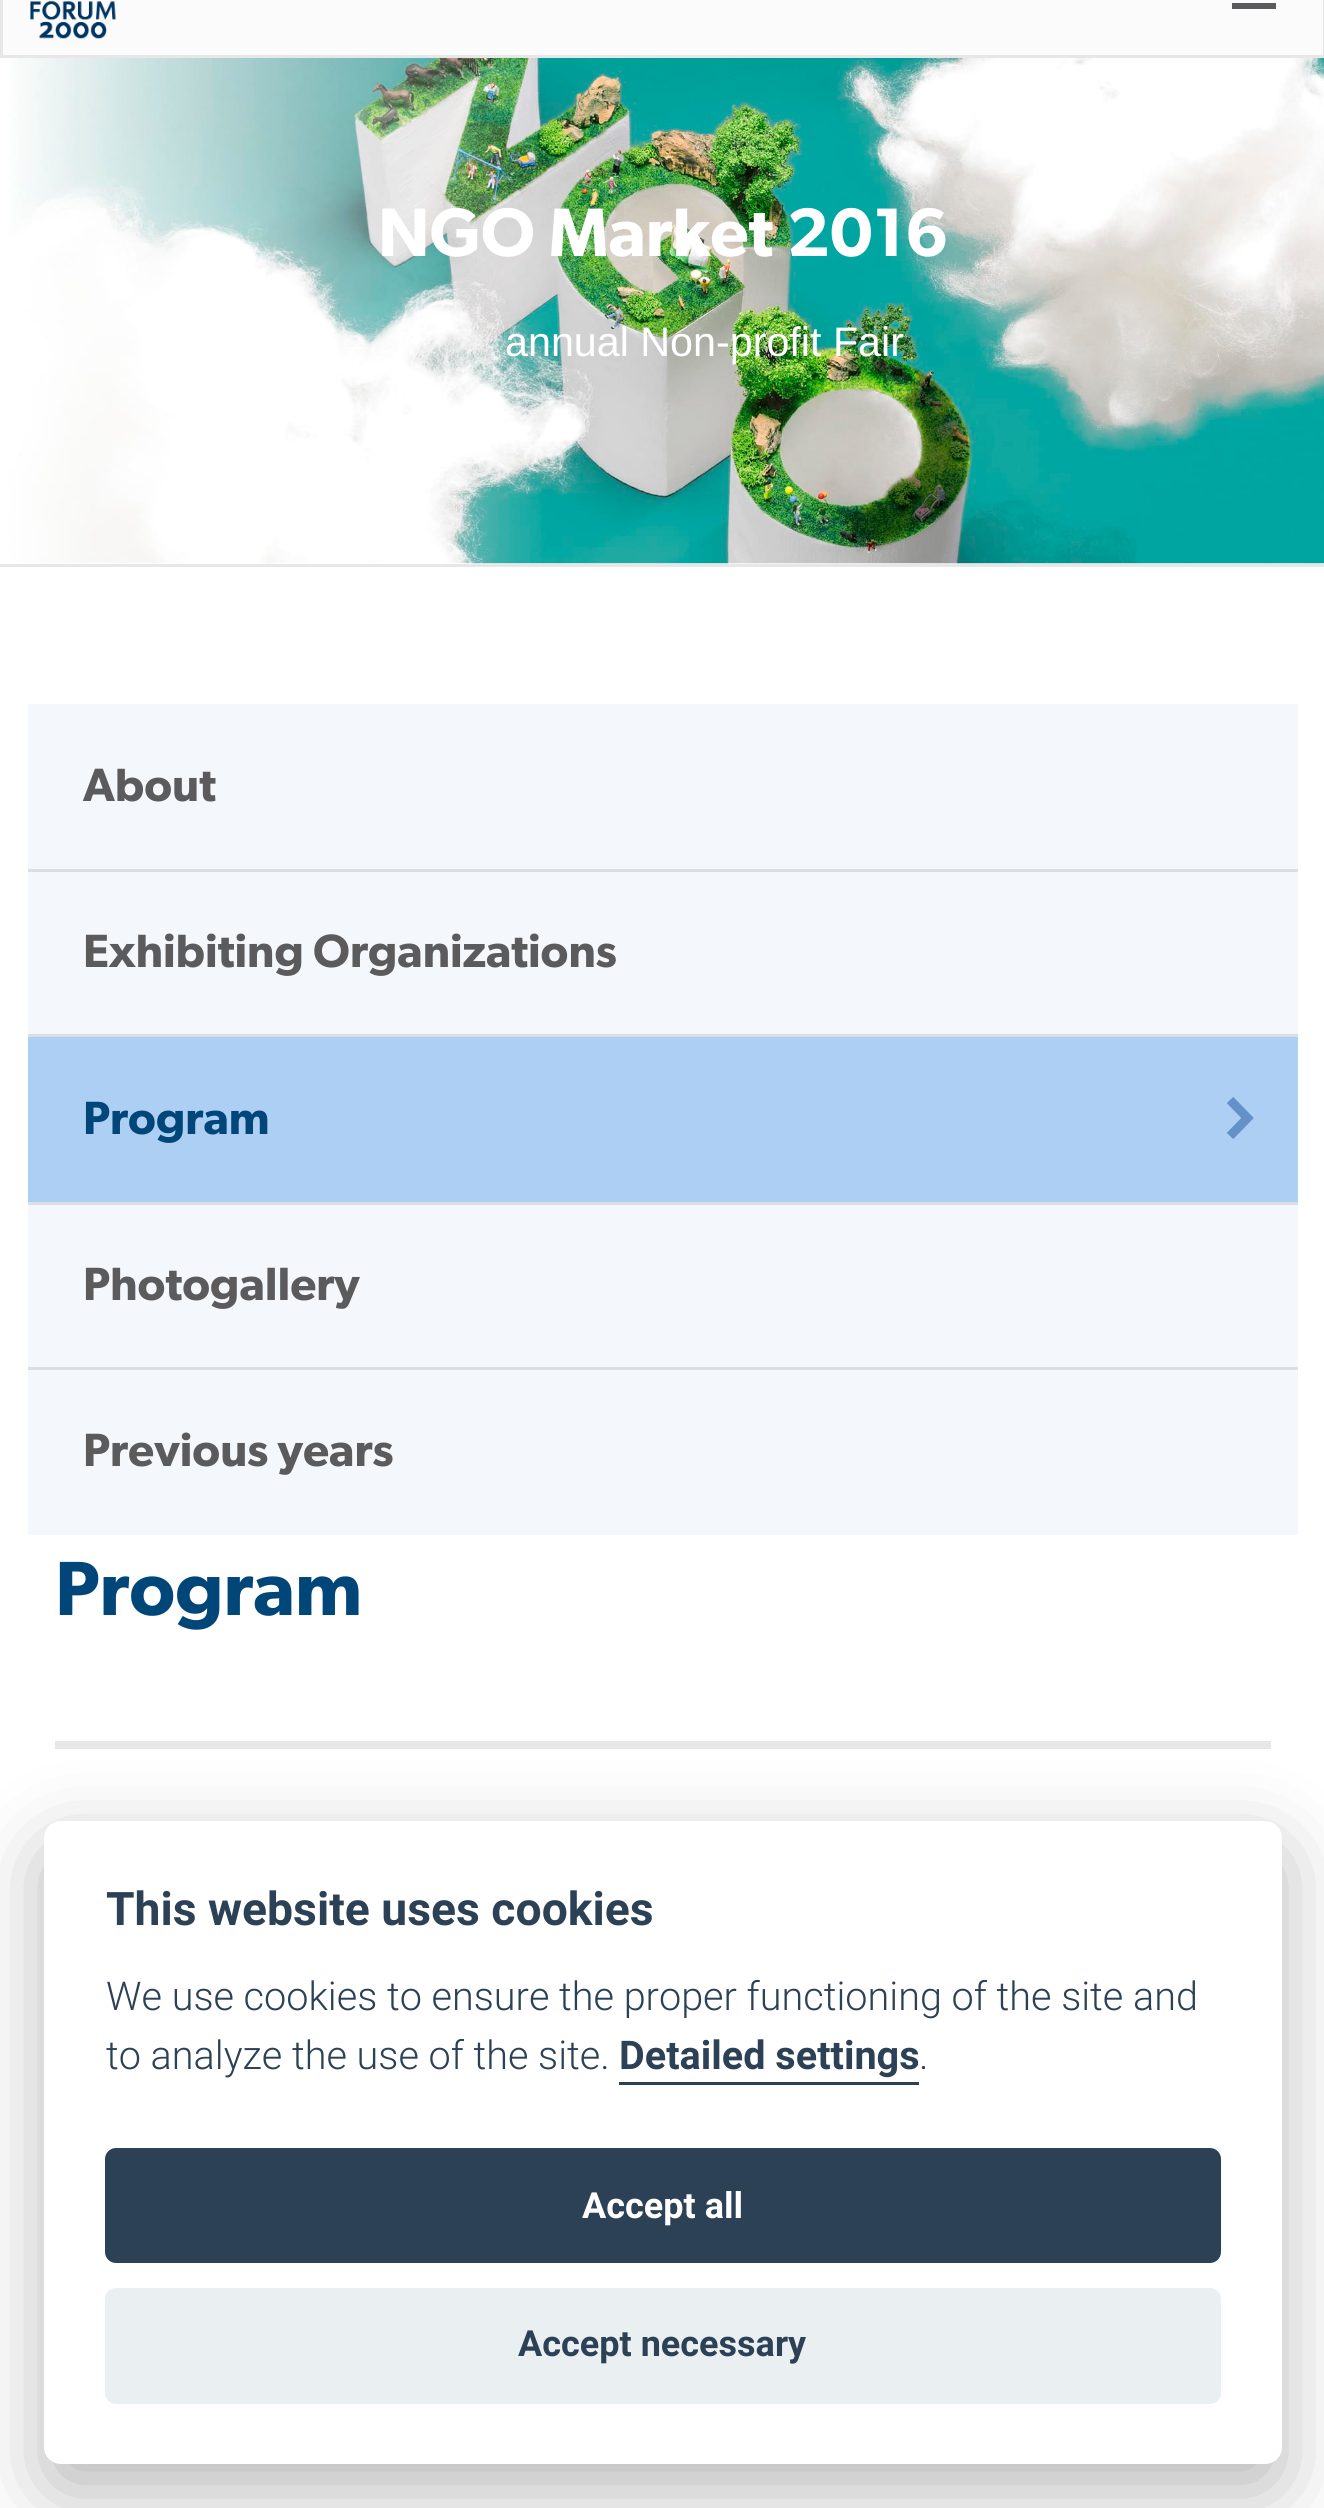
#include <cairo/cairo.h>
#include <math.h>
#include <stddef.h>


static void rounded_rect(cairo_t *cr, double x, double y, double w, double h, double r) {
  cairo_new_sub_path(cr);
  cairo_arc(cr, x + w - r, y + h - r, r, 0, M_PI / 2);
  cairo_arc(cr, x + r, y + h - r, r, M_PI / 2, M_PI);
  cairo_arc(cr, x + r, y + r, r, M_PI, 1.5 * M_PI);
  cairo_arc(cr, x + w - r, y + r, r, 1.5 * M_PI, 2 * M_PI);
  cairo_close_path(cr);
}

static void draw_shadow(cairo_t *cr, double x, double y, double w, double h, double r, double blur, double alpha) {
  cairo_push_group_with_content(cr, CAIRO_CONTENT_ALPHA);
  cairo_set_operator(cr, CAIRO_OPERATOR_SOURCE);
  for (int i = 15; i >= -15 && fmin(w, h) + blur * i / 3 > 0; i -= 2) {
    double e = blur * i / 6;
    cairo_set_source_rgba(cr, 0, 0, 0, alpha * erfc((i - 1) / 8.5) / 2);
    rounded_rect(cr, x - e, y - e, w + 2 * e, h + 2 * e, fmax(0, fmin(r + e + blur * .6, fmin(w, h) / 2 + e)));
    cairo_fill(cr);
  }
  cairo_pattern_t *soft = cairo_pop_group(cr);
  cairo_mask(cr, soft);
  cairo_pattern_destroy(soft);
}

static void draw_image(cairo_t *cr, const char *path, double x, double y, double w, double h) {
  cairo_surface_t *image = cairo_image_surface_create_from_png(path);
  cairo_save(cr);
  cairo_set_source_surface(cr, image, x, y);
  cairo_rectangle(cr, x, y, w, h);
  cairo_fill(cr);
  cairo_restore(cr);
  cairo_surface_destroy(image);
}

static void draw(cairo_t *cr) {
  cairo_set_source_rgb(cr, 1, 1, 1);
  cairo_paint(cr);
  cairo_set_source_rgb(cr, 251 / 255.0, 251 / 255.0, 251 / 255.0);
  cairo_rectangle(cr, 1.5, -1.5, 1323, 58);
  cairo_fill_preserve(cr);
  cairo_set_source_rgb(cr, 231 / 255.0, 231 / 255.0, 231 / 255.0);
  cairo_set_line_width(cr, 3);
  cairo_stroke(cr);
  draw_image(cr, "images/1.png", 30, 0, 86, 39);
  cairo_set_source_rgb(cr, 91 / 255.0, 91 / 255.0, 93 / 255.0);
  cairo_rectangle(cr, 1232, 3, 44, 6);
  cairo_fill(cr);
  cairo_set_source_rgb(cr, 231 / 255.0, 231 / 255.0, 231 / 255.0);
  cairo_rectangle(cr, 0, 564, 1324, 3);
  cairo_fill(cr);
  draw_image(cr, "images/2.png", 8, 58, 1316, 506);
  cairo_set_source_rgb(cr, 219 / 255.0, 223 / 255.0, 228 / 255.0);
  cairo_rectangle(cr, 28, 869, 1270, 3);
  cairo_fill(cr);
  cairo_set_source_rgb(cr, 244 / 255.0, 247 / 255.0, 251 / 255.0);
  cairo_rectangle(cr, 28, 704, 1270, 165);
  cairo_fill(cr);
  cairo_set_source_rgb(cr, 219 / 255.0, 223 / 255.0, 228 / 255.0);
  cairo_rectangle(cr, 28, 1034, 1270, 3);
  cairo_fill(cr);
  cairo_set_source_rgb(cr, 244 / 255.0, 247 / 255.0, 251 / 255.0);
  cairo_rectangle(cr, 28, 872, 1270, 162);
  cairo_fill(cr);
  cairo_set_source_rgb(cr, 219 / 255.0, 223 / 255.0, 228 / 255.0);
  cairo_rectangle(cr, 28, 1202, 1270, 3);
  cairo_fill(cr);
  cairo_set_source_rgb(cr, 174 / 255.0, 207 / 255.0, 244 / 255.0);
  cairo_rectangle(cr, 28, 1037, 1270, 165);
  cairo_fill(cr);
  cairo_new_path(cr);
  cairo_move_to(cr, 1230, 1100);
  cairo_line_to(cr, 1247.5, 1118);
  cairo_line_to(cr, 1230, 1136);
  cairo_set_source_rgb(cr, 100 / 255.0, 145 / 255.0, 200 / 255.0);
  cairo_set_line_width(cr, 9);
  cairo_stroke(cr);
  cairo_set_source_rgb(cr, 219 / 255.0, 223 / 255.0, 228 / 255.0);
  cairo_rectangle(cr, 28, 1367, 1270, 3);
  cairo_fill(cr);
  cairo_set_source_rgb(cr, 244 / 255.0, 247 / 255.0, 251 / 255.0);
  cairo_rectangle(cr, 28, 1205, 1270, 162);
  cairo_fill(cr);
  cairo_rectangle(cr, 28, 1370, 1270, 165);
  cairo_fill(cr);
  cairo_set_source_rgb(cr, 231 / 255.0, 231 / 255.0, 231 / 255.0);
  cairo_rectangle(cr, 55, 1741, 1216, 8);
  cairo_fill(cr);
  cairo_set_source_rgb(cr, 2 / 255.0, 2 / 255.0, 3 / 255.0);
  draw_shadow(cr, 44, 1848, 1238, 644, 17, 41, 0.28);
  cairo_set_source_rgb(cr, 1, 1, 1);
  rounded_rect(cr, 44, 1821, 1238, 643, 17);
  cairo_fill(cr);
  cairo_set_source_rgb(cr, 45 / 255.0, 65 / 255.0, 86 / 255.0);
  cairo_rectangle(cr, 619, 2082, 300, 3);
  cairo_fill(cr);
  rounded_rect(cr, 105, 2148, 1116, 115, 11);
  cairo_fill(cr);
  cairo_set_source_rgb(cr, 234 / 255.0, 239 / 255.0, 242 / 255.0);
  rounded_rect(cr, 105, 2288, 1116, 116, 11);
  cairo_fill(cr);
  cairo_select_font_face(cr, "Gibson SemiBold", CAIRO_FONT_SLANT_NORMAL, CAIRO_FONT_WEIGHT_NORMAL);
  cairo_set_font_size(cr, 68.75);
  cairo_set_source_rgb(cr, 1, 1, 1);
  cairo_move_to(cr, 378, 256);
  cairo_show_text(cr, "NGO Market 2016");
  cairo_select_font_face(cr, "Liberation Sans", CAIRO_FONT_SLANT_NORMAL, CAIRO_FONT_WEIGHT_NORMAL);
  cairo_set_font_size(cr, 41.25);
  cairo_move_to(cr, 505, 356);
  cairo_show_text(cr, "annual Non-profit Fair");
  cairo_select_font_face(cr, "Gibson SemiBold", CAIRO_FONT_SLANT_NORMAL, CAIRO_FONT_WEIGHT_NORMAL);
  cairo_set_font_size(cr, 46.75);
  cairo_set_source_rgb(cr, 91 / 255.0, 91 / 255.0, 93 / 255.0);
  cairo_move_to(cr, 83, 801);
  cairo_show_text(cr, "About");
  cairo_move_to(cr, 83, 967);
  cairo_show_text(cr, "Exhibiting Organizations");
  cairo_set_source_rgb(cr, 0, 70 / 255.0, 120 / 255.0);
  cairo_move_to(cr, 83, 1134);
  cairo_show_text(cr, "Program");
  cairo_set_source_rgb(cr, 91 / 255.0, 91 / 255.0, 93 / 255.0);
  cairo_move_to(cr, 83, 1300);
  cairo_show_text(cr, "Photogallery");
  cairo_move_to(cr, 83, 1466);
  cairo_show_text(cr, "Previous years");
  cairo_set_font_size(cr, 77);
  cairo_set_source_rgb(cr, 0, 70 / 255.0, 120 / 255.0);
  cairo_move_to(cr, 55, 1615);
  cairo_show_text(cr, "Program");
  cairo_select_font_face(cr, "Roboto", CAIRO_FONT_SLANT_NORMAL, CAIRO_FONT_WEIGHT_BOLD);
  cairo_set_font_size(cr, 46.25);
  cairo_set_source_rgb(cr, 45 / 255.0, 65 / 255.0, 86 / 255.0);
  cairo_move_to(cr, 106, 1925);
  cairo_show_text(cr, "This website uses cookies");
  cairo_select_font_face(cr, "Roboto Light", CAIRO_FONT_SLANT_NORMAL, CAIRO_FONT_WEIGHT_NORMAL);
  cairo_set_font_size(cr, 39.6);
  cairo_move_to(cr, 106, 2010);
  cairo_show_text(cr, "We use cookies to ensure the proper functioning of the site and");
  cairo_move_to(cr, 106, 2069);
  cairo_show_text(cr, "to analyze the use of the site.");
  cairo_select_font_face(cr, "Roboto", CAIRO_FONT_SLANT_NORMAL, CAIRO_FONT_WEIGHT_BOLD);
  cairo_move_to(cr, 619, 2069);
  cairo_show_text(cr, "Detailed settings");
  cairo_select_font_face(cr, "Roboto Light", CAIRO_FONT_SLANT_NORMAL, CAIRO_FONT_WEIGHT_NORMAL);
  cairo_move_to(cr, 919, 2069);
  cairo_show_text(cr, ".");
  cairo_select_font_face(cr, "Roboto", CAIRO_FONT_SLANT_NORMAL, CAIRO_FONT_WEIGHT_BOLD);
  cairo_set_font_size(cr, 36);
  cairo_set_source_rgb(cr, 1, 1, 1);
  cairo_move_to(cr, 582, 2218);
  cairo_show_text(cr, "Accept all");
  cairo_set_source_rgb(cr, 45 / 255.0, 65 / 255.0, 86 / 255.0);
  cairo_move_to(cr, 518, 2356);
  cairo_show_text(cr, "Accept necessary");
}

int main(void) {
  cairo_surface_t *surface = cairo_image_surface_create(CAIRO_FORMAT_RGB24, 1324, 2508);
  cairo_t *cr = cairo_create(surface);
  cairo_font_options_t *options = cairo_font_options_create();
  cairo_font_options_set_hint_metrics(options, CAIRO_HINT_METRICS_OFF);
  cairo_font_options_set_hint_style(options, CAIRO_HINT_STYLE_NONE);
  cairo_set_font_options(cr, options);
  cairo_set_miter_limit(cr, 4);
  draw(cr);
  cairo_surface_write_to_png(surface, "out.png");
  cairo_font_options_destroy(options);
  cairo_destroy(cr);
  cairo_surface_destroy(surface);
  return 0;
}
